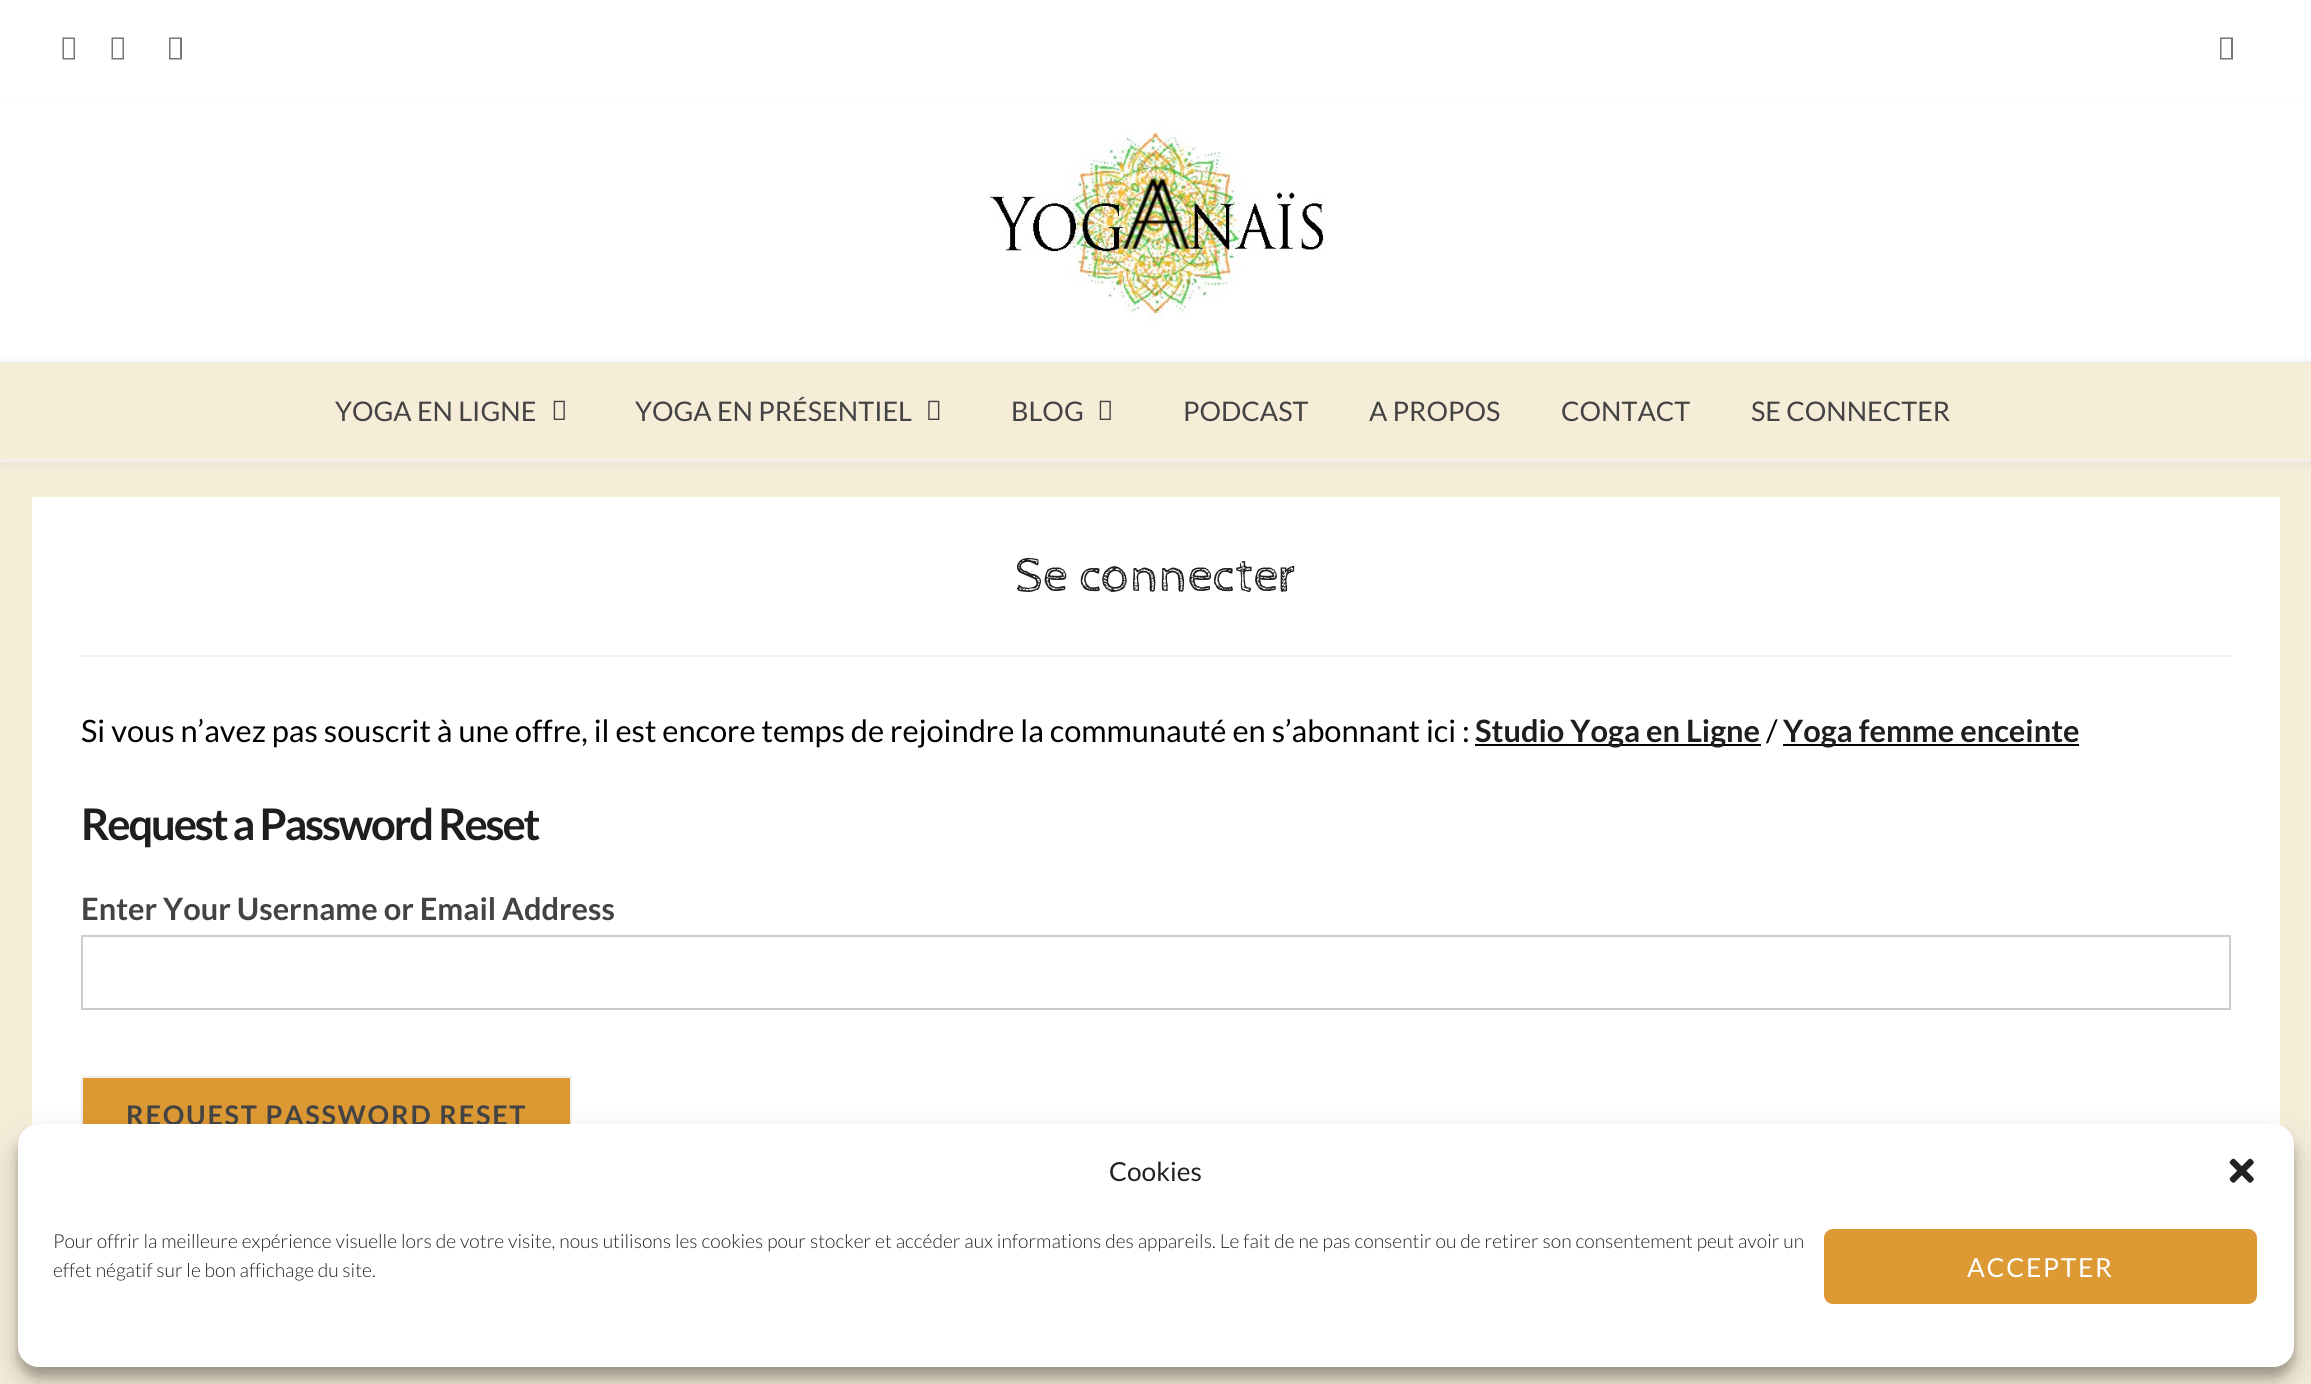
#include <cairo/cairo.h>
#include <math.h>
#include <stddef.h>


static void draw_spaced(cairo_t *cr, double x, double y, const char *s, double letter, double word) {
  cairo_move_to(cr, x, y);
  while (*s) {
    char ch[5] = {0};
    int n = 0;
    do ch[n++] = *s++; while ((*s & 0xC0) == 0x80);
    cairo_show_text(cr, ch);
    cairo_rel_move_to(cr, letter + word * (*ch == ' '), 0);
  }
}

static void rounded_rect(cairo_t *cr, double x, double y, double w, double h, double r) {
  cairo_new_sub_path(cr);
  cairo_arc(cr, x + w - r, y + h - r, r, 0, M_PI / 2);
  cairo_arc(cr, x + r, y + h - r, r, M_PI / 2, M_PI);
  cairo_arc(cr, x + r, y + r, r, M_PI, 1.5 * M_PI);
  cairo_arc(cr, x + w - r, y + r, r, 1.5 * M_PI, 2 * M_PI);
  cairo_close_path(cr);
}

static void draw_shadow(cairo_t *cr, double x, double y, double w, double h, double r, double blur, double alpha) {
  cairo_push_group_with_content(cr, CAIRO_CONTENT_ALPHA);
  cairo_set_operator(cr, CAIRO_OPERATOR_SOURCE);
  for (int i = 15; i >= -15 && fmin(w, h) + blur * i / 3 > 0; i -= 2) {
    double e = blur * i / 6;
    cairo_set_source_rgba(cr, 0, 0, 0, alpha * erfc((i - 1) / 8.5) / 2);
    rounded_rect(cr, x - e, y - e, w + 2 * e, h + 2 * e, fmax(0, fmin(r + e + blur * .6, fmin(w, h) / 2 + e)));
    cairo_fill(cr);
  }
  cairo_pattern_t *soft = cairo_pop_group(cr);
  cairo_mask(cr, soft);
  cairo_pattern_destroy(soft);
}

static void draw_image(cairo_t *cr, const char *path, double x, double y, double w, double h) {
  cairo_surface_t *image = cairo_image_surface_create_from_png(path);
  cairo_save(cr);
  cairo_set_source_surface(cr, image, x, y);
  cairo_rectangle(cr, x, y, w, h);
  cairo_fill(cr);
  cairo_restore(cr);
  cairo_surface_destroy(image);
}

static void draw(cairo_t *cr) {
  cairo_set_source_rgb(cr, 1, 1, 1);
  cairo_paint(cr);
  cairo_set_source_rgb(cr, 252 / 255.0, 252 / 255.0, 252 / 255.0);
  cairo_rectangle(cr, 0, 98, 2311, 2);
  cairo_fill(cr);
  cairo_set_source_rgb(cr, 118 / 255.0, 118 / 255.0, 118 / 255.0);
  cairo_new_path(cr);
  cairo_move_to(cr, 62.5, 59.5);
  cairo_line_to(cr, 62.5, 37.5);
  cairo_line_to(cr, 75, 37.5);
  cairo_line_to(cr, 75, 59.5);
  cairo_close_path(cr);
  cairo_move_to(cr, 64, 58);
  cairo_line_to(cr, 73.5, 58);
  cairo_line_to(cr, 73.5, 39);
  cairo_line_to(cr, 64, 39);
  cairo_close_path(cr);
  cairo_move_to(cr, 111.5, 59.5);
  cairo_line_to(cr, 111.5, 37.5);
  cairo_line_to(cr, 124, 37.5);
  cairo_line_to(cr, 124, 59.5);
  cairo_close_path(cr);
  cairo_move_to(cr, 113, 58);
  cairo_line_to(cr, 122.5, 58);
  cairo_line_to(cr, 122.5, 39);
  cairo_line_to(cr, 113, 39);
  cairo_close_path(cr);
  cairo_fill(cr);
  cairo_new_path(cr);
  cairo_move_to(cr, 169, 59.5);
  cairo_line_to(cr, 169, 37.5);
  cairo_line_to(cr, 182, 37.5);
  cairo_line_to(cr, 182, 59.5);
  cairo_close_path(cr);
  cairo_move_to(cr, 170.5, 58);
  cairo_line_to(cr, 180, 58);
  cairo_line_to(cr, 180, 39);
  cairo_line_to(cr, 170.5, 39);
  cairo_close_path(cr);
  cairo_fill(cr);
  cairo_new_path(cr);
  cairo_move_to(cr, 2220, 59.5);
  cairo_line_to(cr, 2220, 37.5);
  cairo_line_to(cr, 2233, 37.5);
  cairo_line_to(cr, 2233, 59.5);
  cairo_close_path(cr);
  cairo_move_to(cr, 2221.5, 58);
  cairo_line_to(cr, 2231, 58);
  cairo_line_to(cr, 2231, 39);
  cairo_line_to(cr, 2221.5, 39);
  cairo_close_path(cr);
  cairo_fill(cr);
  draw_image(cr, "images/1.png", 987, 126, 339, 198);
  cairo_set_source_rgb(cr, 246 / 255.0, 237 / 255.0, 217 / 255.0);
  cairo_rectangle(cr, 0, 462, 2311, 922);
  cairo_fill(cr);
  cairo_set_source_rgb(cr, 0, 0, 0);
  draw_shadow(cr, 0, 362, 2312, 102, 0, 4.5, 0.05);
  cairo_set_source_rgb(cr, 246 / 255.0, 237 / 255.0, 217 / 255.0);
  cairo_rectangle(cr, 0, 363, 2311, 97);
  cairo_fill(cr);
  cairo_set_source_rgb(cr, 239 / 255.0, 239 / 255.0, 239 / 255.0);
  cairo_rectangle(cr, 0, 361, 2311, 2);
  cairo_fill(cr);
  cairo_rectangle(cr, 0, 460, 2311, 2);
  cairo_fill(cr);
  draw_image(cr, "images/2.png", 553, 400, 12, 20);
  draw_image(cr, "images/3.png", 928, 400, 12, 20);
  draw_image(cr, "images/2.png", 1099, 400, 12, 20);
  cairo_set_source_rgb(cr, 1, 1, 1);
  cairo_rectangle(cr, 32, 497, 2248, 629);
  cairo_fill(cr);
  cairo_set_source_rgb(cr, 239 / 255.0, 239 / 255.0, 239 / 255.0);
  cairo_rectangle(cr, 81, 655, 2150, 2);
  cairo_fill(cr);
  cairo_set_source_rgb(cr, 0, 0, 0);
  cairo_rectangle(cr, 1475, 744, 286, 2);
  cairo_fill(cr);
  cairo_rectangle(cr, 1783, 744, 296, 2);
  cairo_fill(cr);
  cairo_rectangle(cr, 82, 936, 2148, 73);
  cairo_set_source_rgb(cr, 204 / 255.0, 204 / 255.0, 204 / 255.0);
  cairo_stroke(cr);
  cairo_set_source_rgb(cr, 221 / 255.0, 153 / 255.0, 51 / 255.0);
  cairo_rectangle(cr, 83, 1078, 487, 46);
  cairo_fill(cr);
  cairo_rectangle(cr, 82, 1077, 489, 77);
  cairo_set_source_rgb(cr, 239 / 255.0, 239 / 255.0, 239 / 255.0);
  cairo_stroke(cr);
  cairo_set_source_rgb(cr, 0, 0, 0);
  draw_shadow(cr, 18, 1134, 2276, 243, 21, 5, 0.23);
  draw_shadow(cr, 18, 1141, 2276, 243, 21, 17.5, 0.19);
  cairo_select_font_face(cr, "Lato", CAIRO_FONT_SLANT_NORMAL, CAIRO_FONT_WEIGHT_NORMAL);
  cairo_set_font_size(cr, 27);
  cairo_set_source_rgb(cr, 67 / 255.0, 67 / 255.0, 67 / 255.0);
  cairo_move_to(cr, 335, 421);
  cairo_show_text(cr, "YOGA EN LIGNE");
  cairo_move_to(cr, 635, 421);
  cairo_show_text(cr, "YOGA EN PRÉSENTIEL");
  cairo_move_to(cr, 1011, 421);
  cairo_show_text(cr, "BLOG");
  cairo_move_to(cr, 1183, 421);
  cairo_show_text(cr, "PODCAST");
  cairo_move_to(cr, 1369, 421);
  cairo_show_text(cr, "A PROPOS");
  cairo_move_to(cr, 1561, 421);
  cairo_show_text(cr, "CONTACT");
  cairo_move_to(cr, 1751, 421);
  cairo_show_text(cr, "SE CONNECTER");
  cairo_select_font_face(cr, "Cabin Sketch", CAIRO_FONT_SLANT_NORMAL, CAIRO_FONT_WEIGHT_NORMAL);
  cairo_set_font_size(cr, 50);
  cairo_set_source_rgb(cr, 28 / 255.0, 30 / 255.0, 31 / 255.0);
  cairo_move_to(cr, 1015, 591);
  cairo_show_text(cr, "Se connecter");
  cairo_select_font_face(cr, "Lato", CAIRO_FONT_SLANT_NORMAL, CAIRO_FONT_WEIGHT_NORMAL);
  cairo_set_font_size(cr, 30.8);
  cairo_set_source_rgb(cr, 0, 0, 0);
  cairo_move_to(cr, 81, 742);
  cairo_show_text(cr, "Si vous n’avez pas souscrit à une offre, il est encore temps de rejoindre la communauté en s’abonnant ici :");
  cairo_select_font_face(cr, "Lato", CAIRO_FONT_SLANT_NORMAL, CAIRO_FONT_WEIGHT_BOLD);
  cairo_set_source_rgb(cr, 28 / 255.0, 30 / 255.0, 31 / 255.0);
  cairo_move_to(cr, 1475, 742);
  cairo_show_text(cr, "Studio Yoga en Ligne");
  cairo_select_font_face(cr, "Lato", CAIRO_FONT_SLANT_NORMAL, CAIRO_FONT_WEIGHT_NORMAL);
  cairo_set_source_rgb(cr, 0, 0, 0);
  cairo_move_to(cr, 1766, 742);
  cairo_show_text(cr, "/");
  cairo_select_font_face(cr, "Lato", CAIRO_FONT_SLANT_NORMAL, CAIRO_FONT_WEIGHT_BOLD);
  cairo_set_source_rgb(cr, 28 / 255.0, 30 / 255.0, 31 / 255.0);
  cairo_move_to(cr, 1783, 742);
  cairo_show_text(cr, "Yoga femme enceinte");
  cairo_set_font_size(cr, 43.6);
  draw_spaced(cr, 81, 840, "Request a Password Reset", -2.2, 0);
  cairo_set_font_size(cr, 30.8);
  cairo_set_source_rgb(cr, 67 / 255.0, 67 / 255.0, 67 / 255.0);
  cairo_move_to(cr, 81, 920);
  cairo_show_text(cr, "Enter Your Username or Email Address");
  cairo_set_font_size(cr, 27);
  draw_spaced(cr, 126, 1125, "REQUEST PASSWORD RESET", 1.75, 0);
  cairo_set_source_rgb(cr, 1, 1, 1);
  rounded_rect(cr, 18, 1124, 2276, 243, 21);
  cairo_fill(cr);
  cairo_select_font_face(cr, "Lato", CAIRO_FONT_SLANT_NORMAL, CAIRO_FONT_WEIGHT_NORMAL);
  cairo_set_font_size(cr, 26.25);
  cairo_set_source_rgb(cr, 34 / 255.0, 34 / 255.0, 34 / 255.0);
  cairo_move_to(cr, 1109, 1181);
  cairo_show_text(cr, "Cookies");
  draw_image(cr, "images/4.png", 2229, 1158, 25, 25);
  cairo_select_font_face(cr, "Lato Light", CAIRO_FONT_SLANT_NORMAL, CAIRO_FONT_WEIGHT_NORMAL);
  cairo_set_font_size(cr, 19.25);
  draw_spaced(cr, 53, 1248, "Pour offrir la meilleure expérience visuelle lors de votre visite, nous utilisons les cookies pour stocker et accéder aux informations des appareils. Le fait de ne pas consentir ou de retirer son consentement peut avoir un", 0, 0.2);
  cairo_move_to(cr, 53, 1277);
  cairo_show_text(cr, "effet négatif sur le bon affichage du site.");
  cairo_set_source_rgb(cr, 221 / 255.0, 153 / 255.0, 51 / 255.0);
  rounded_rect(cr, 1823, 1228, 435, 77, 10);
  cairo_fill_preserve(cr);
  cairo_set_source_rgb(cr, 1, 1, 1);
  cairo_stroke(cr);
  cairo_select_font_face(cr, "Lato", CAIRO_FONT_SLANT_NORMAL, CAIRO_FONT_WEIGHT_NORMAL);
  cairo_set_font_size(cr, 26.25);
  draw_spaced(cr, 1967, 1277, "ACCEPTER", 1.75, 0);
}

int main(void) {
  cairo_surface_t *surface = cairo_image_surface_create(CAIRO_FORMAT_RGB24, 2311, 1384);
  cairo_t *cr = cairo_create(surface);
  cairo_font_options_t *options = cairo_font_options_create();
  cairo_font_options_set_hint_metrics(options, CAIRO_HINT_METRICS_OFF);
  cairo_font_options_set_hint_style(options, CAIRO_HINT_STYLE_NONE);
  cairo_set_font_options(cr, options);
  cairo_set_miter_limit(cr, 4);
  draw(cr);
  cairo_surface_write_to_png(surface, "out.png");
  cairo_font_options_destroy(options);
  cairo_destroy(cr);
  cairo_surface_destroy(surface);
  return 0;
}
